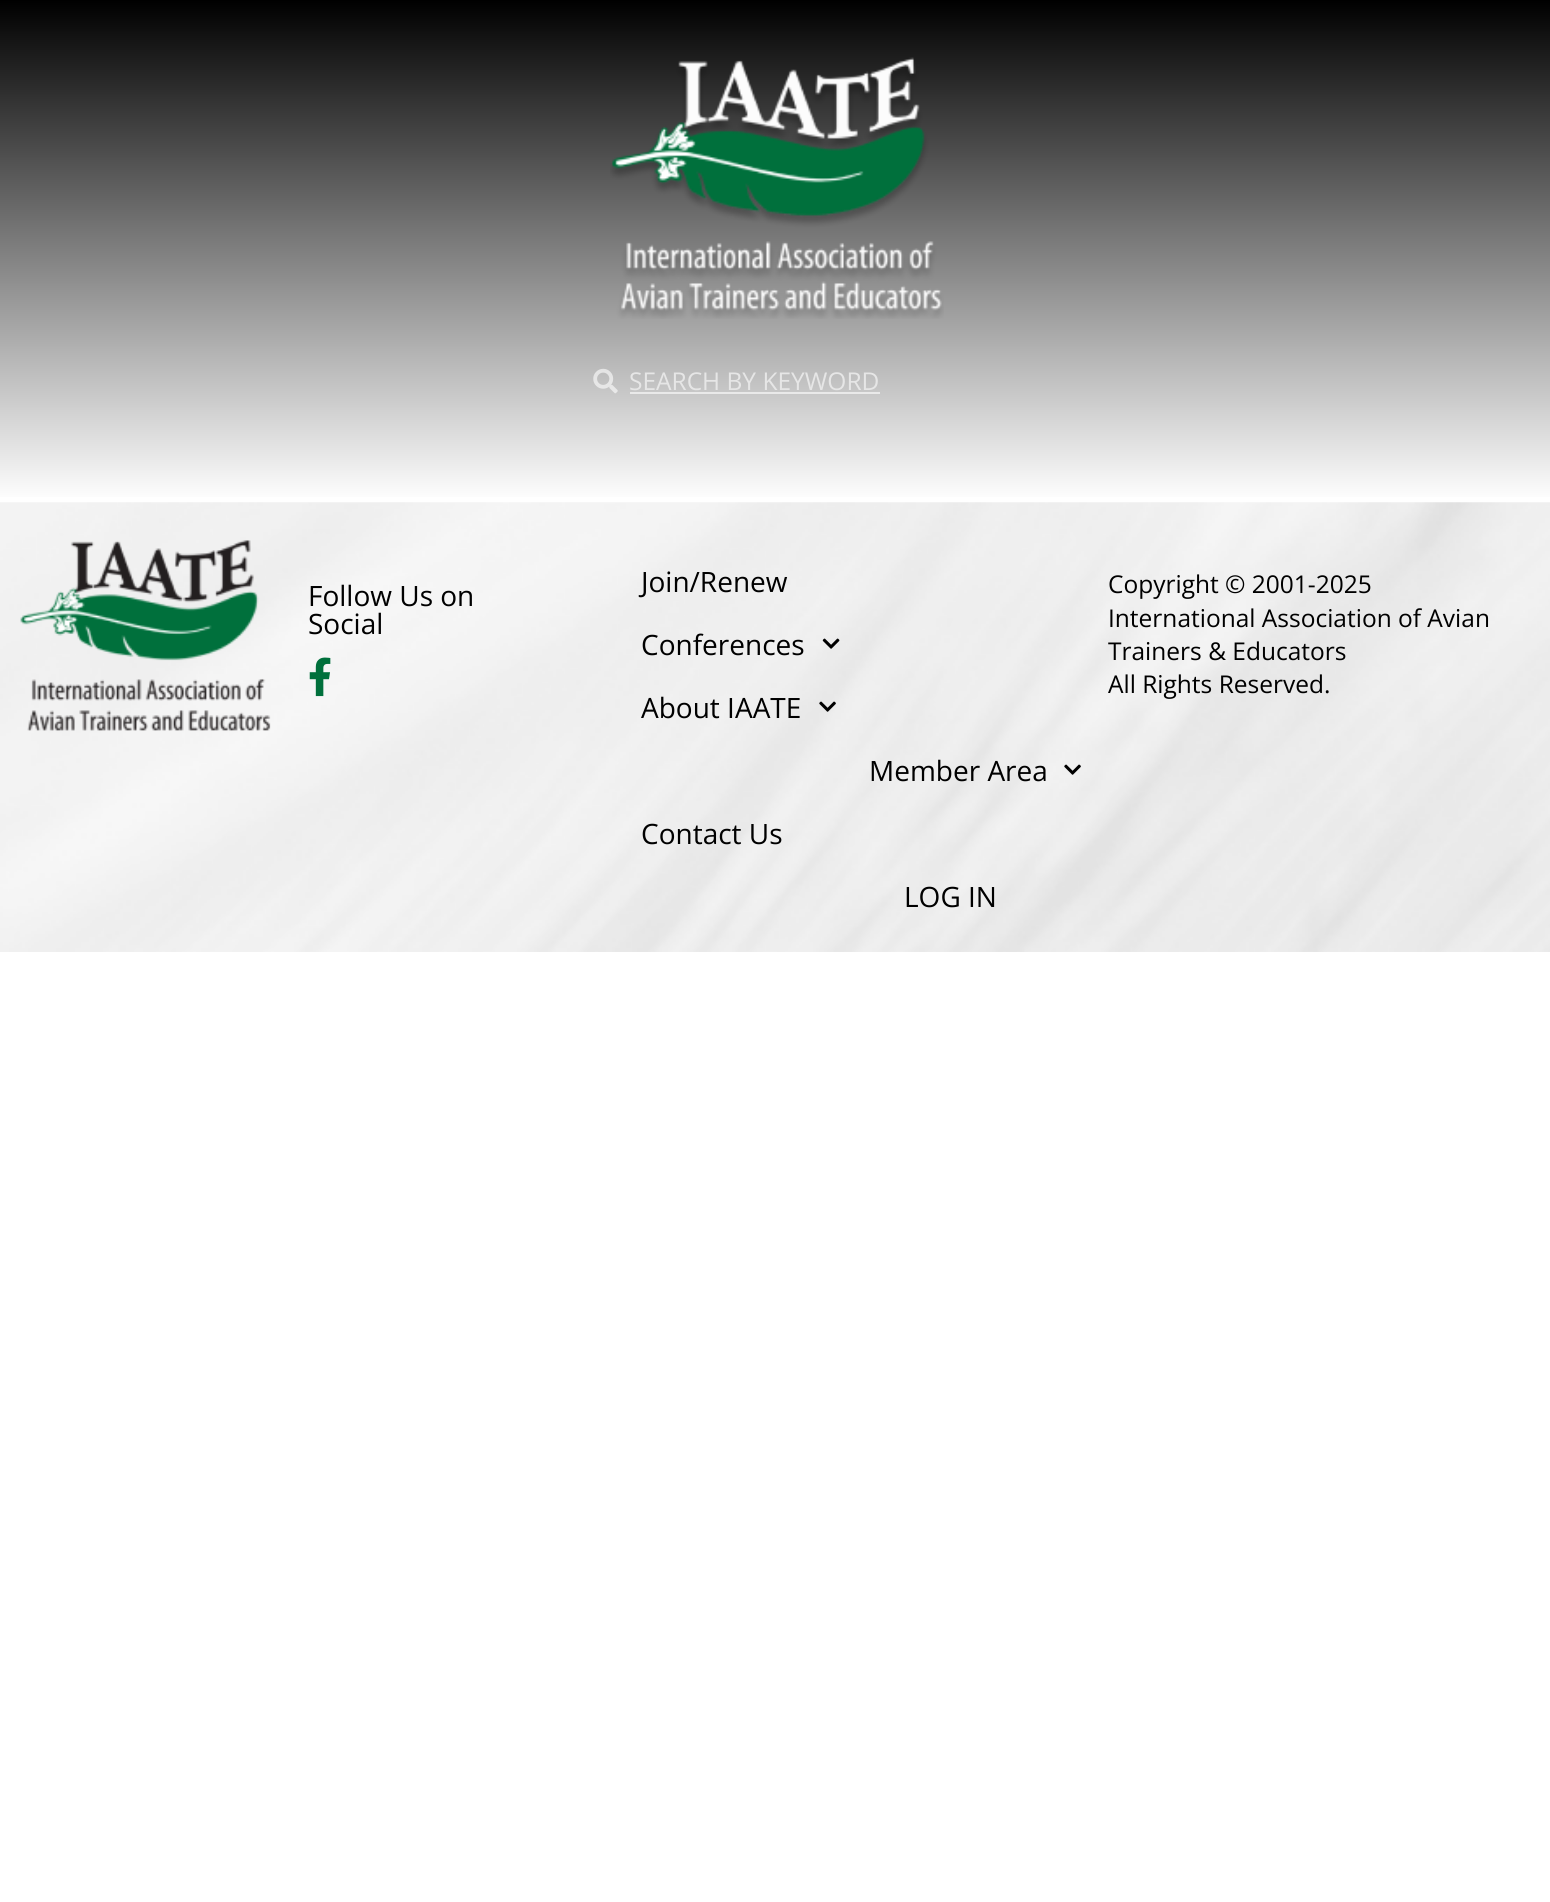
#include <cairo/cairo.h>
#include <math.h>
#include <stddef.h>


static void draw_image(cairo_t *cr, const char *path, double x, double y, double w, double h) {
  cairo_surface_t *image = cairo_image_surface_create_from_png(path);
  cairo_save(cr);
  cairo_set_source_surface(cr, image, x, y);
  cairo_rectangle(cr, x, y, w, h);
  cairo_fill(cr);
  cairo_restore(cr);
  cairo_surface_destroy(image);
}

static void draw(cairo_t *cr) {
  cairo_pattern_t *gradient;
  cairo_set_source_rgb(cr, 1, 1, 1);
  cairo_paint(cr);
  gradient = cairo_pattern_create_linear(775, 0, 775, 502);
  cairo_pattern_add_color_stop_rgba(gradient, 0, 0, 0, 0, 1);
  cairo_pattern_add_color_stop_rgba(gradient, 1, 1, 1, 1, 1);
  cairo_set_source(cr, gradient);
  cairo_pattern_destroy(gradient);
  cairo_rectangle(cr, 0, 0, 1550, 497);
  cairo_fill(cr);
  draw_image(cr, "images/1.png", 610, 57, 334, 262);
  draw_image(cr, "images/2.png", 593, 368, 25, 26);
  cairo_set_source_rgb(cr, 233 / 255.0, 233 / 255.0, 233 / 255.0);
  cairo_rectangle(cr, 630, 392, 250, 2);
  cairo_fill(cr);
  draw_image(cr, "images/3.png", 0, 502, 1550, 450);
  draw_image(cr, "images/4.png", 20, 540, 251, 191);
  draw_image(cr, "images/5.png", 309, 657, 22, 40);
  draw_image(cr, "images/6.png", 822, 638, 18, 11);
  draw_image(cr, "images/7.png", 819, 701, 17, 11);
  draw_image(cr, "images/8.png", 1064, 764, 17, 11);
  cairo_select_font_face(cr, "Open Sans", CAIRO_FONT_SLANT_NORMAL, CAIRO_FONT_WEIGHT_NORMAL);
  cairo_set_font_size(cr, 24.5);
  cairo_set_source_rgb(cr, 230 / 255.0, 230 / 255.0, 230 / 255.0);
  cairo_move_to(cr, 629, 390);
  cairo_show_text(cr, "SEARCH BY KEYWORD");
  cairo_set_font_size(cr, 28);
  cairo_set_source_rgb(cr, 0, 0, 0);
  cairo_move_to(cr, 308, 606);
  cairo_show_text(cr, "Follow Us on");
  cairo_move_to(cr, 308, 634);
  cairo_show_text(cr, "Social");
  cairo_move_to(cr, 641, 592);
  cairo_show_text(cr, "Join/Renew");
  cairo_move_to(cr, 641, 655);
  cairo_show_text(cr, "Conferences");
  cairo_move_to(cr, 641, 718);
  cairo_show_text(cr, "About IAATE");
  cairo_move_to(cr, 869, 781);
  cairo_show_text(cr, "Member Area");
  cairo_move_to(cr, 641, 844);
  cairo_show_text(cr, "Contact Us");
  cairo_move_to(cr, 904, 907);
  cairo_show_text(cr, "LOG IN");
  cairo_set_font_size(cr, 24.5);
  cairo_move_to(cr, 1108, 593);
  cairo_show_text(cr, "Copyright © 2001-2025");
  cairo_move_to(cr, 1108, 627);
  cairo_show_text(cr, "International Association of Avian");
  cairo_move_to(cr, 1108, 660);
  cairo_show_text(cr, "Trainers & Educators");
  cairo_move_to(cr, 1108, 693);
  cairo_show_text(cr, "All Rights Reserved.");
}

int main(void) {
  cairo_surface_t *surface = cairo_image_surface_create(CAIRO_FORMAT_RGB24, 1550, 1902);
  cairo_t *cr = cairo_create(surface);
  cairo_font_options_t *options = cairo_font_options_create();
  cairo_font_options_set_hint_metrics(options, CAIRO_HINT_METRICS_OFF);
  cairo_font_options_set_hint_style(options, CAIRO_HINT_STYLE_NONE);
  cairo_set_font_options(cr, options);
  cairo_set_miter_limit(cr, 4);
  draw(cr);
  cairo_surface_write_to_png(surface, "out.png");
  cairo_font_options_destroy(options);
  cairo_destroy(cr);
  cairo_surface_destroy(surface);
  return 0;
}
